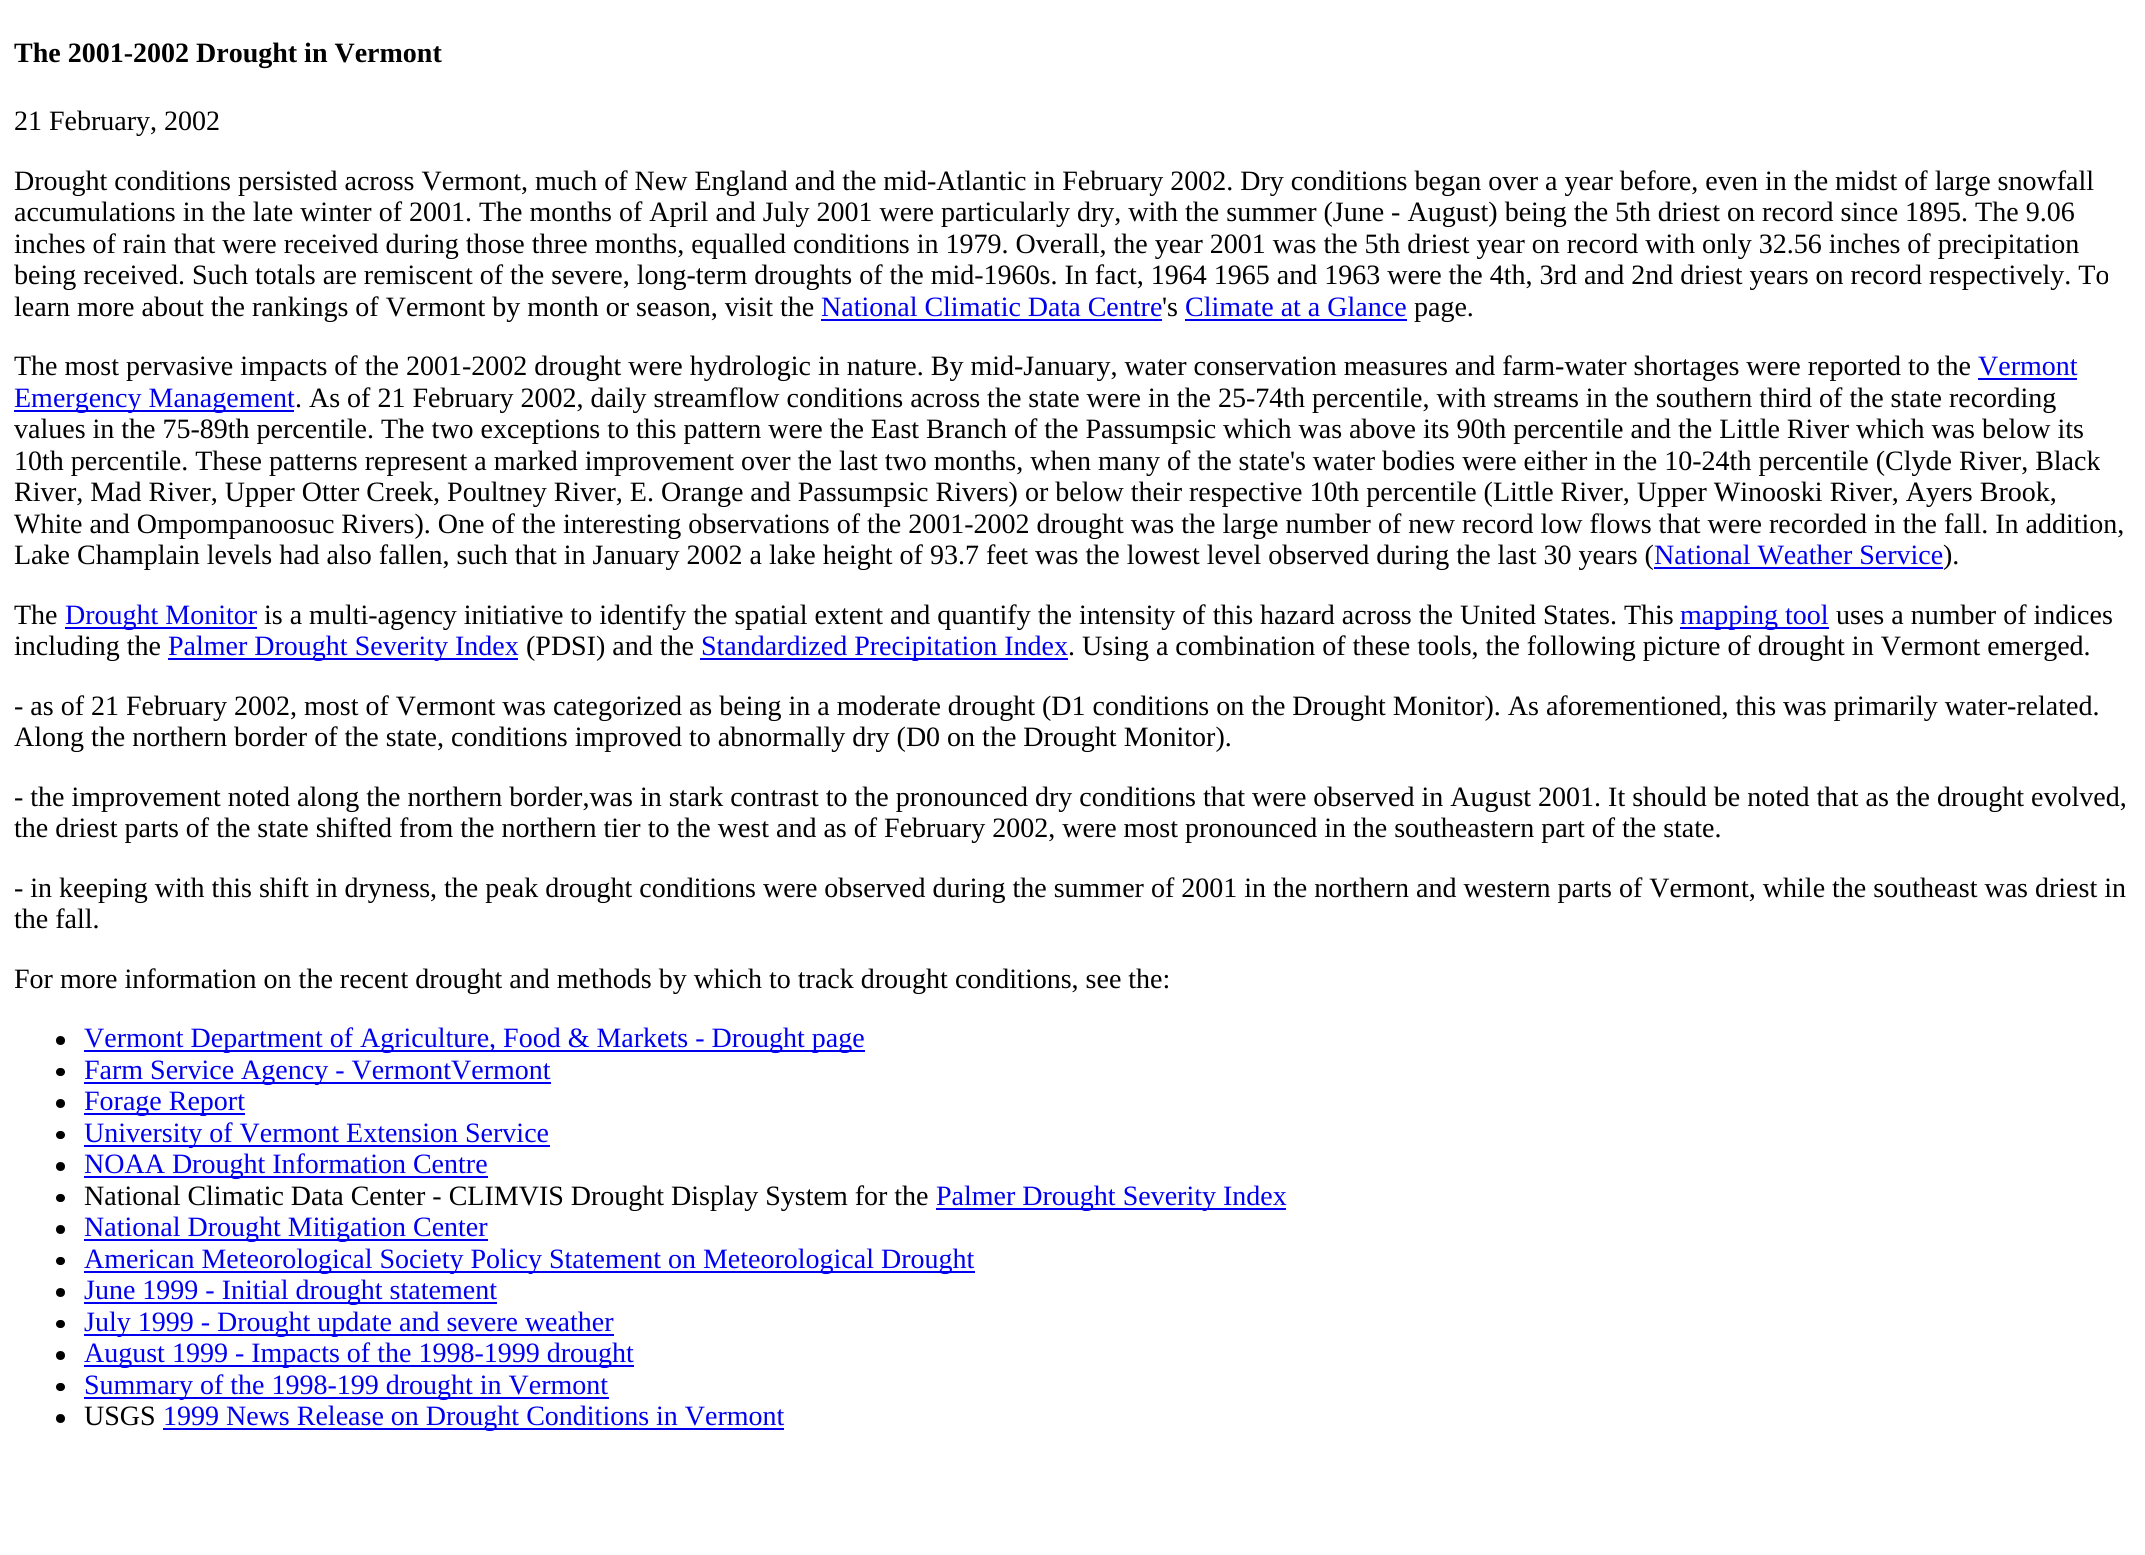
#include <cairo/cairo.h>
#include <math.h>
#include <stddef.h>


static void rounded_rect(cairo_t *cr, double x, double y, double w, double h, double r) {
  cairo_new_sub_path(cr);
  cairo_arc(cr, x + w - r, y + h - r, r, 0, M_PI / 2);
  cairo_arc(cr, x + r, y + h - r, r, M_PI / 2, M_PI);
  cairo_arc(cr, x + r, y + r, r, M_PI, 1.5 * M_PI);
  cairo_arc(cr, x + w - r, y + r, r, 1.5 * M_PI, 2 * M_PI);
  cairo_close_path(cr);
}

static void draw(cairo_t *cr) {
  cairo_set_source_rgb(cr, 1, 1, 1);
  cairo_paint(cr);
  cairo_set_source_rgb(cr, 0, 0, 238 / 255.0);
  cairo_rectangle(cr, 821, 319, 341, 2);
  cairo_fill(cr);
  cairo_rectangle(cr, 1185, 319, 222, 2);
  cairo_fill(cr);
  cairo_rectangle(cr, 1978, 378, 99, 2);
  cairo_fill(cr);
  cairo_rectangle(cr, 14, 410, 280, 2);
  cairo_fill(cr);
  cairo_rectangle(cr, 1654, 567, 289, 2);
  cairo_fill(cr);
  cairo_rectangle(cr, 65, 627, 192, 2);
  cairo_fill(cr);
  cairo_rectangle(cr, 1680, 627, 149, 2);
  cairo_fill(cr);
  cairo_rectangle(cr, 168, 658, 350, 2);
  cairo_fill(cr);
  cairo_rectangle(cr, 700, 658, 368, 2);
  cairo_fill(cr);
  cairo_set_source_rgb(cr, 0, 0, 0);
  cairo_arc(cr, 60.5, 1040.5, 4.5, 0, 2 * M_PI);
  cairo_fill(cr);
  cairo_set_source_rgb(cr, 0, 0, 238 / 255.0);
  cairo_rectangle(cr, 84, 1050, 781, 2);
  cairo_fill(cr);
  cairo_set_source_rgb(cr, 0, 0, 0);
  rounded_rect(cr, 56, 1068, 9, 8, 4);
  cairo_fill(cr);
  cairo_set_source_rgb(cr, 0, 0, 238 / 255.0);
  cairo_rectangle(cr, 84, 1082, 467, 2);
  cairo_fill(cr);
  cairo_set_source_rgb(cr, 0, 0, 0);
  cairo_arc(cr, 60.5, 1103.5, 4.5, 0, 2 * M_PI);
  cairo_fill(cr);
  cairo_set_source_rgb(cr, 0, 0, 238 / 255.0);
  cairo_rectangle(cr, 84, 1113, 161, 2);
  cairo_fill(cr);
  cairo_set_source_rgb(cr, 0, 0, 0);
  rounded_rect(cr, 56, 1131, 9, 8, 4);
  cairo_fill(cr);
  cairo_set_source_rgb(cr, 0, 0, 238 / 255.0);
  cairo_rectangle(cr, 84, 1145, 466, 2);
  cairo_fill(cr);
  cairo_set_source_rgb(cr, 0, 0, 0);
  cairo_arc(cr, 60.5, 1166.5, 4.5, 0, 2 * M_PI);
  cairo_fill(cr);
  cairo_set_source_rgb(cr, 0, 0, 238 / 255.0);
  cairo_rectangle(cr, 84, 1176, 404, 2);
  cairo_fill(cr);
  cairo_set_source_rgb(cr, 0, 0, 0);
  rounded_rect(cr, 56, 1194, 9, 8, 4);
  cairo_fill(cr);
  cairo_set_source_rgb(cr, 0, 0, 238 / 255.0);
  cairo_rectangle(cr, 936, 1208, 350, 2);
  cairo_fill(cr);
  cairo_set_source_rgb(cr, 0, 0, 0);
  cairo_arc(cr, 60.5, 1229.5, 4.5, 0, 2 * M_PI);
  cairo_fill(cr);
  cairo_set_source_rgb(cr, 0, 0, 238 / 255.0);
  cairo_rectangle(cr, 84, 1239, 404, 2);
  cairo_fill(cr);
  cairo_set_source_rgb(cr, 0, 0, 0);
  rounded_rect(cr, 56, 1257, 9, 8, 4);
  cairo_fill(cr);
  cairo_set_source_rgb(cr, 0, 0, 238 / 255.0);
  cairo_rectangle(cr, 84, 1271, 891, 2);
  cairo_fill(cr);
  cairo_set_source_rgb(cr, 0, 0, 0);
  cairo_arc(cr, 60.5, 1292.5, 4.5, 0, 2 * M_PI);
  cairo_fill(cr);
  cairo_set_source_rgb(cr, 0, 0, 238 / 255.0);
  cairo_rectangle(cr, 84, 1302, 413, 2);
  cairo_fill(cr);
  cairo_set_source_rgb(cr, 0, 0, 0);
  rounded_rect(cr, 56, 1320, 9, 8, 4);
  cairo_fill(cr);
  cairo_set_source_rgb(cr, 0, 0, 238 / 255.0);
  cairo_rectangle(cr, 84, 1334, 530, 2);
  cairo_fill(cr);
  cairo_set_source_rgb(cr, 0, 0, 0);
  cairo_arc(cr, 60.5, 1355.5, 4.5, 0, 2 * M_PI);
  cairo_fill(cr);
  cairo_set_source_rgb(cr, 0, 0, 238 / 255.0);
  cairo_rectangle(cr, 84, 1365, 550, 2);
  cairo_fill(cr);
  cairo_set_source_rgb(cr, 0, 0, 0);
  rounded_rect(cr, 56, 1383, 9, 8, 4);
  cairo_fill(cr);
  cairo_set_source_rgb(cr, 0, 0, 238 / 255.0);
  cairo_rectangle(cr, 84, 1397, 525, 2);
  cairo_fill(cr);
  cairo_set_source_rgb(cr, 0, 0, 0);
  cairo_arc(cr, 60.5, 1418.5, 4.5, 0, 2 * M_PI);
  cairo_fill(cr);
  cairo_set_source_rgb(cr, 0, 0, 238 / 255.0);
  cairo_rectangle(cr, 163, 1428, 621, 2);
  cairo_fill(cr);
  cairo_select_font_face(cr, "Liberation Serif", CAIRO_FONT_SLANT_NORMAL, CAIRO_FONT_WEIGHT_BOLD);
  cairo_set_font_size(cr, 28);
  cairo_set_source_rgb(cr, 0, 0, 0);
  cairo_move_to(cr, 14, 62);
  cairo_show_text(cr, "The 2001-2002 Drought in Vermont");
  cairo_select_font_face(cr, "Liberation Serif", CAIRO_FONT_SLANT_NORMAL, CAIRO_FONT_WEIGHT_NORMAL);
  cairo_move_to(cr, 14, 130);
  cairo_show_text(cr, "21 February, 2002");
  cairo_move_to(cr, 14, 190);
  cairo_show_text(cr, "Drought conditions persisted across Vermont, much of New England and the mid-Atlantic in February 2002. Dry conditions began over a year before, even in the midst of large snowfall");
  cairo_move_to(cr, 14, 221);
  cairo_show_text(cr, "accumulations in the late winter of 2001. The months of April and July 2001 were particularly dry, with the summer (June - August) being the 5th driest on record since 1895. The 9.06");
  cairo_move_to(cr, 14, 253);
  cairo_show_text(cr, "inches of rain that were received during those three months, equalled conditions in 1979. Overall, the year 2001 was the 5th driest year on record with only 32.56 inches of precipitation");
  cairo_move_to(cr, 14, 284);
  cairo_show_text(cr, "being received. Such totals are remiscent of the severe, long-term droughts of the mid-1960s. In fact, 1964 1965 and 1963 were the 4th, 3rd and 2nd driest years on record respectively. To");
  cairo_move_to(cr, 14, 316);
  cairo_show_text(cr, "learn more about the rankings of Vermont by month or season, visit the");
  cairo_set_source_rgb(cr, 0, 0, 238 / 255.0);
  cairo_move_to(cr, 821, 316);
  cairo_show_text(cr, "National Climatic Data Centre");
  cairo_set_source_rgb(cr, 0, 0, 0);
  cairo_move_to(cr, 1162, 316);
  cairo_show_text(cr, "'s");
  cairo_set_source_rgb(cr, 0, 0, 238 / 255.0);
  cairo_move_to(cr, 1185, 316);
  cairo_show_text(cr, "Climate at a Glance");
  cairo_set_source_rgb(cr, 0, 0, 0);
  cairo_move_to(cr, 1414, 316);
  cairo_show_text(cr, "page.");
  cairo_move_to(cr, 14, 375);
  cairo_show_text(cr, "The most pervasive impacts of the 2001-2002 drought were hydrologic in nature. By mid-January, water conservation measures and farm-water shortages were reported to the");
  cairo_set_source_rgb(cr, 0, 0, 238 / 255.0);
  cairo_move_to(cr, 1978, 375);
  cairo_show_text(cr, "Vermont");
  cairo_move_to(cr, 14, 407);
  cairo_show_text(cr, "Emergency Management");
  cairo_set_source_rgb(cr, 0, 0, 0);
  cairo_move_to(cr, 295, 407);
  cairo_show_text(cr, ". As of 21 February 2002, daily streamflow conditions across the state were in the 25-74th percentile, with streams in the southern third of the state recording");
  cairo_move_to(cr, 14, 438);
  cairo_show_text(cr, "values in the 75-89th percentile. The two exceptions to this pattern were the East Branch of the Passumpsic which was above its 90th percentile and the Little River which was below its");
  cairo_move_to(cr, 14, 470);
  cairo_show_text(cr, "10th percentile. These patterns represent a marked improvement over the last two months, when many of the state's water bodies were either in the 10-24th percentile (Clyde River, Black");
  cairo_move_to(cr, 14, 501);
  cairo_show_text(cr, "River, Mad River, Upper Otter Creek, Poultney River, E. Orange and Passumpsic Rivers) or below their respective 10th percentile (Little River, Upper Winooski River, Ayers Brook,");
  cairo_move_to(cr, 14, 533);
  cairo_show_text(cr, "White and Ompompanoosuc Rivers). One of the interesting observations of the 2001-2002 drought was the large number of new record low flows that were recorded in the fall. In addition,");
  cairo_move_to(cr, 14, 564);
  cairo_show_text(cr, "Lake Champlain levels had also fallen, such that in January 2002 a lake height of 93.7 feet was the lowest level observed during the last 30 years (");
  cairo_set_source_rgb(cr, 0, 0, 238 / 255.0);
  cairo_move_to(cr, 1654, 564);
  cairo_show_text(cr, "National Weather Service");
  cairo_set_source_rgb(cr, 0, 0, 0);
  cairo_move_to(cr, 1943, 564);
  cairo_show_text(cr, ").");
  cairo_move_to(cr, 14, 624);
  cairo_show_text(cr, "The");
  cairo_set_source_rgb(cr, 0, 0, 238 / 255.0);
  cairo_move_to(cr, 65, 624);
  cairo_show_text(cr, "Drought Monitor");
  cairo_set_source_rgb(cr, 0, 0, 0);
  cairo_move_to(cr, 264, 624);
  cairo_show_text(cr, "is a multi-agency initiative to identify the spatial extent and quantify the intensity of this hazard across the United States. This");
  cairo_set_source_rgb(cr, 0, 0, 238 / 255.0);
  cairo_move_to(cr, 1680, 624);
  cairo_show_text(cr, "mapping tool");
  cairo_set_source_rgb(cr, 0, 0, 0);
  cairo_move_to(cr, 1836, 624);
  cairo_show_text(cr, "uses a number of indices");
  cairo_move_to(cr, 14, 655);
  cairo_show_text(cr, "including the");
  cairo_set_source_rgb(cr, 0, 0, 238 / 255.0);
  cairo_move_to(cr, 168, 655);
  cairo_show_text(cr, "Palmer Drought Severity Index");
  cairo_set_source_rgb(cr, 0, 0, 0);
  cairo_move_to(cr, 526, 655);
  cairo_show_text(cr, "(PDSI) and the");
  cairo_set_source_rgb(cr, 0, 0, 238 / 255.0);
  cairo_move_to(cr, 701, 655);
  cairo_show_text(cr, "Standardized Precipitation Index");
  cairo_set_source_rgb(cr, 0, 0, 0);
  cairo_move_to(cr, 1068, 655);
  cairo_show_text(cr, ". Using a combination of these tools, the following picture of drought in Vermont emerged.");
  cairo_move_to(cr, 14, 715);
  cairo_show_text(cr, "- as of 21 February 2002, most of Vermont was categorized as being in a moderate drought (D1 conditions on the Drought Monitor). As aforementioned, this was primarily water-related.");
  cairo_move_to(cr, 14, 746);
  cairo_show_text(cr, "Along the northern border of the state, conditions improved to abnormally dry (D0 on the Drought Monitor).");
  cairo_move_to(cr, 14, 806);
  cairo_show_text(cr, "- the improvement noted along the northern border,was in stark contrast to the pronounced dry conditions that were observed in August 2001. It should be noted that as the drought evolved,");
  cairo_move_to(cr, 14, 837);
  cairo_show_text(cr, "the driest parts of the state shifted from the northern tier to the west and as of February 2002, were most pronounced in the southeastern part of the state.");
  cairo_move_to(cr, 14, 897);
  cairo_show_text(cr, "- in keeping with this shift in dryness, the peak drought conditions were observed during the summer of 2001 in the northern and western parts of Vermont, while the southeast was driest in");
  cairo_move_to(cr, 14, 928);
  cairo_show_text(cr, "the fall.");
  cairo_move_to(cr, 14, 988);
  cairo_show_text(cr, "For more information on the recent drought and methods by which to track drought conditions, see the:");
  cairo_set_source_rgb(cr, 0, 0, 238 / 255.0);
  cairo_move_to(cr, 84, 1047);
  cairo_show_text(cr, "Vermont Department of Agriculture, Food & Markets - Drought page");
  cairo_move_to(cr, 84, 1079);
  cairo_show_text(cr, "Farm Service Agency - VermontVermont");
  cairo_move_to(cr, 84, 1110);
  cairo_show_text(cr, "Forage Report");
  cairo_move_to(cr, 84, 1142);
  cairo_show_text(cr, "University of Vermont Extension Service");
  cairo_move_to(cr, 84, 1173);
  cairo_show_text(cr, "NOAA Drought Information Centre");
  cairo_set_source_rgb(cr, 0, 0, 0);
  cairo_move_to(cr, 84, 1205);
  cairo_show_text(cr, "National Climatic Data Center - CLIMVIS Drought Display System for the");
  cairo_set_source_rgb(cr, 0, 0, 238 / 255.0);
  cairo_move_to(cr, 936, 1205);
  cairo_show_text(cr, "Palmer Drought Severity Index");
  cairo_move_to(cr, 84, 1236);
  cairo_show_text(cr, "National Drought Mitigation Center");
  cairo_move_to(cr, 84, 1268);
  cairo_show_text(cr, "American Meteorological Society Policy Statement on Meteorological Drought");
  cairo_move_to(cr, 84, 1299);
  cairo_show_text(cr, "June 1999 - Initial drought statement");
  cairo_move_to(cr, 84, 1331);
  cairo_show_text(cr, "July 1999 - Drought update and severe weather");
  cairo_move_to(cr, 84, 1362);
  cairo_show_text(cr, "August 1999 - Impacts of the 1998-1999 drought");
  cairo_move_to(cr, 84, 1394);
  cairo_show_text(cr, "Summary of the 1998-199 drought in Vermont");
  cairo_set_source_rgb(cr, 0, 0, 0);
  cairo_move_to(cr, 84, 1425);
  cairo_show_text(cr, "USGS");
  cairo_set_source_rgb(cr, 0, 0, 238 / 255.0);
  cairo_move_to(cr, 163, 1425);
  cairo_show_text(cr, "1999 News Release on Drought Conditions in Vermont");
}

int main(void) {
  cairo_surface_t *surface = cairo_image_surface_create(CAIRO_FORMAT_RGB24, 2145, 1555);
  cairo_t *cr = cairo_create(surface);
  cairo_font_options_t *options = cairo_font_options_create();
  cairo_font_options_set_hint_metrics(options, CAIRO_HINT_METRICS_OFF);
  cairo_font_options_set_hint_style(options, CAIRO_HINT_STYLE_NONE);
  cairo_set_font_options(cr, options);
  cairo_set_miter_limit(cr, 4);
  draw(cr);
  cairo_surface_write_to_png(surface, "out.png");
  cairo_font_options_destroy(options);
  cairo_destroy(cr);
  cairo_surface_destroy(surface);
  return 0;
}
